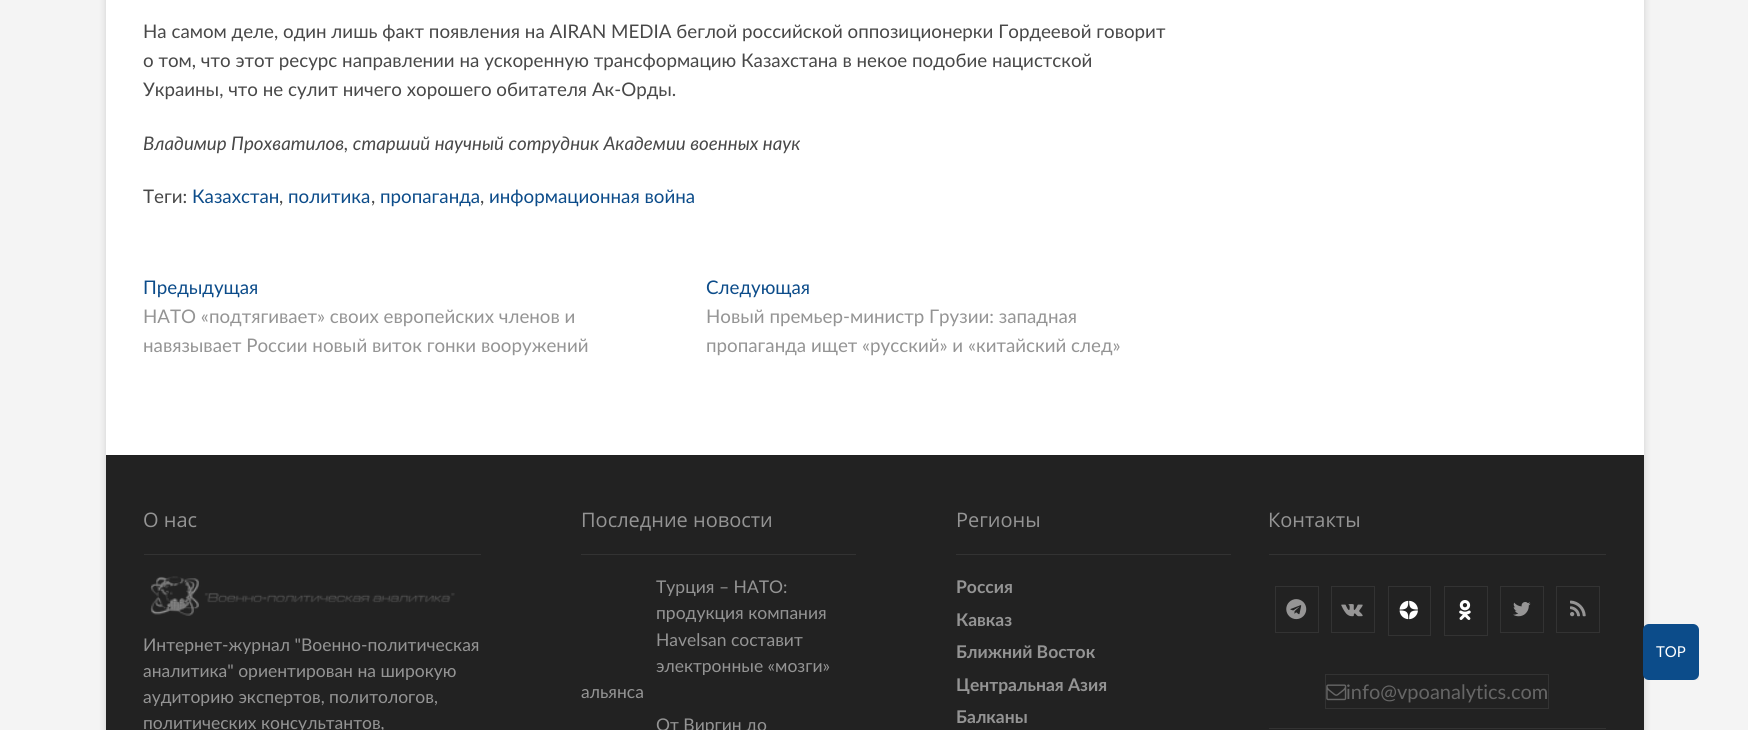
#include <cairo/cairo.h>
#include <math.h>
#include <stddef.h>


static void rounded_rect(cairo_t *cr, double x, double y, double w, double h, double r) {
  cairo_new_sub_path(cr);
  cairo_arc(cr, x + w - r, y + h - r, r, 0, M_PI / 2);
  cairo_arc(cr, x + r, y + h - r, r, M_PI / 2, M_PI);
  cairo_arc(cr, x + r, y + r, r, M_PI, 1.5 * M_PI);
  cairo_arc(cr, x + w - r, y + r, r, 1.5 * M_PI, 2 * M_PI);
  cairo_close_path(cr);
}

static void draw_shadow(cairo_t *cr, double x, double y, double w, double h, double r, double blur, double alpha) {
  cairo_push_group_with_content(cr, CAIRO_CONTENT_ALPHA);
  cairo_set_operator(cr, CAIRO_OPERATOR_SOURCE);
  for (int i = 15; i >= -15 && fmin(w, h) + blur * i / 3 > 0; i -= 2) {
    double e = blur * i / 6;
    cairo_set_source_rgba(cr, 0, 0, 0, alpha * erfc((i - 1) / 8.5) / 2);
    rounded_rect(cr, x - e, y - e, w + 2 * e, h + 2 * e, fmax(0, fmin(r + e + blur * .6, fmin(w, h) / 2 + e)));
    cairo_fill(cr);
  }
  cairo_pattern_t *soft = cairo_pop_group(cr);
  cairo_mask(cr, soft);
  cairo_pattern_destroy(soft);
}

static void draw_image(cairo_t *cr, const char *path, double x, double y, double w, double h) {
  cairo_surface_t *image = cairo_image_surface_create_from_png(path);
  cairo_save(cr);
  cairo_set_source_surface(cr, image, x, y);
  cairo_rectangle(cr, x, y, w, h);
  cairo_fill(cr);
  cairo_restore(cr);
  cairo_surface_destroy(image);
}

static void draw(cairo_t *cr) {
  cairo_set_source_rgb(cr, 244 / 255.0, 244 / 255.0, 244 / 255.0);
  cairo_paint(cr);
  cairo_set_source_rgb(cr, 0, 0, 0);
  draw_shadow(cr, 106, -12, 1538, 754, 0, 4, 0.15);
  cairo_set_source_rgb(cr, 1, 1, 1);
  cairo_rectangle(cr, 106, 0, 1538, 455);
  cairo_fill(cr);
  cairo_set_source_rgb(cr, 34 / 255.0, 34 / 255.0, 34 / 255.0);
  cairo_rectangle(cr, 106, 456, 1538, 274);
  cairo_fill(cr);
  cairo_set_source_rgb(cr, 32 / 255.0, 32 / 255.0, 32 / 255.0);
  cairo_rectangle(cr, 106, 455, 1538, 1);
  cairo_fill(cr);
  cairo_set_source_rgb(cr, 51 / 255.0, 51 / 255.0, 51 / 255.0);
  cairo_rectangle(cr, 144, 554, 337, 1);
  cairo_fill(cr);
  draw_image(cr, "images/1.png", 150, 576, 305, 40);
  cairo_rectangle(cr, 581, 554, 275, 1);
  cairo_fill(cr);
  cairo_rectangle(cr, 956, 554, 275, 1);
  cairo_fill(cr);
  cairo_rectangle(cr, 1269, 554, 337, 1);
  cairo_fill(cr);
  cairo_rectangle(cr, 1269, 728, 337, 1);
  cairo_fill(cr);
  cairo_rectangle(cr, 1275.5, 586.5, 43, 46);
  cairo_set_line_width(cr, 1);
  cairo_stroke(cr);
  draw_image(cr, "images/2.png", 1286, 599, 21, 21);
  cairo_rectangle(cr, 1331.5, 586.5, 43, 46);
  cairo_stroke(cr);
  draw_image(cr, "images/3.png", 1341, 604, 22, 13);
  cairo_rectangle(cr, 1388.5, 586.5, 42, 49);
  cairo_stroke(cr);
  draw_image(cr, "images/4.png", 1399, 600, 19, 20);
  cairo_rectangle(cr, 1444.5, 586.5, 43, 49);
  cairo_stroke(cr);
  draw_image(cr, "images/5.png", 1459, 600, 12, 20);
  cairo_rectangle(cr, 1500.5, 586.5, 43, 46);
  cairo_stroke(cr);
  draw_image(cr, "images/6.png", 1513, 602, 18, 15);
  cairo_rectangle(cr, 1556.5, 586.5, 43, 46);
  cairo_stroke(cr);
  draw_image(cr, "images/7.png", 1570, 600, 16, 17);
  cairo_rectangle(cr, 1325.5, 674.5, 223, 34);
  cairo_stroke(cr);
  draw_image(cr, "images/8.png", 1326, 684, 21, 17);
  cairo_save(cr);
  cairo_rectangle(cr, 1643, 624, 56, 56);
  cairo_clip(cr);
  cairo_set_source_rgb(cr, 0, 0, 0);
  draw_shadow(cr, 1643, 626, 56, 57, 6, 2, 0.08);
  cairo_restore(cr);
  cairo_set_source_rgb(cr, 12 / 255.0, 76 / 255.0, 138 / 255.0);
  rounded_rect(cr, 1643, 624, 56, 56, 6);
  cairo_fill(cr);
  cairo_select_font_face(cr, "Lato", CAIRO_FONT_SLANT_NORMAL, CAIRO_FONT_WEIGHT_NORMAL);
  cairo_set_font_size(cr, 18.75);
  cairo_set_source_rgb(cr, 72 / 255.0, 72 / 255.0, 72 / 255.0);
  cairo_move_to(cr, 143, 38);
  cairo_show_text(cr, "На самом деле, один лишь факт появления на AIRAN MEDIA беглой российской оппозиционерки Гордеевой говорит");
  cairo_move_to(cr, 143, 67);
  cairo_show_text(cr, "о том, что этот ресурс направлении на ускоренную трансформацию Казахстана в некое подобие нацистской");
  cairo_move_to(cr, 143, 96);
  cairo_show_text(cr, "Украины, что не сулит ничего хорошего обитателя Ак-Орды.");
  cairo_select_font_face(cr, "Lato", CAIRO_FONT_SLANT_ITALIC, CAIRO_FONT_WEIGHT_NORMAL);
  cairo_move_to(cr, 143, 150);
  cairo_show_text(cr, "Владимир Прохватилов, старший научный сотрудник Академии военных наук");
  cairo_select_font_face(cr, "Lato", CAIRO_FONT_SLANT_NORMAL, CAIRO_FONT_WEIGHT_NORMAL);
  cairo_move_to(cr, 143, 203);
  cairo_show_text(cr, "Теги:");
  cairo_set_source_rgb(cr, 12 / 255.0, 76 / 255.0, 138 / 255.0);
  cairo_move_to(cr, 192, 203);
  cairo_show_text(cr, "Казахстан");
  cairo_set_source_rgb(cr, 72 / 255.0, 72 / 255.0, 72 / 255.0);
  cairo_move_to(cr, 279, 203);
  cairo_show_text(cr, ",");
  cairo_set_source_rgb(cr, 12 / 255.0, 76 / 255.0, 138 / 255.0);
  cairo_move_to(cr, 288, 203);
  cairo_show_text(cr, "политика");
  cairo_set_source_rgb(cr, 72 / 255.0, 72 / 255.0, 72 / 255.0);
  cairo_move_to(cr, 371, 203);
  cairo_show_text(cr, ",");
  cairo_set_source_rgb(cr, 12 / 255.0, 76 / 255.0, 138 / 255.0);
  cairo_move_to(cr, 380, 203);
  cairo_show_text(cr, "пропаганда");
  cairo_set_source_rgb(cr, 72 / 255.0, 72 / 255.0, 72 / 255.0);
  cairo_move_to(cr, 480, 203);
  cairo_show_text(cr, ",");
  cairo_set_source_rgb(cr, 12 / 255.0, 76 / 255.0, 138 / 255.0);
  cairo_move_to(cr, 489, 203);
  cairo_show_text(cr, "информационная война");
  cairo_move_to(cr, 143, 294);
  cairo_show_text(cr, "Предыдущая");
  cairo_set_source_rgb(cr, 148 / 255.0, 148 / 255.0, 148 / 255.0);
  cairo_move_to(cr, 143, 323);
  cairo_show_text(cr, "НАТО «подтягивает» своих европейских членов и");
  cairo_move_to(cr, 143, 352);
  cairo_show_text(cr, "навязывает России новый виток гонки вооружений");
  cairo_set_source_rgb(cr, 12 / 255.0, 76 / 255.0, 138 / 255.0);
  cairo_move_to(cr, 706, 294);
  cairo_show_text(cr, "Следующая");
  cairo_set_source_rgb(cr, 148 / 255.0, 148 / 255.0, 148 / 255.0);
  cairo_move_to(cr, 706, 323);
  cairo_show_text(cr, "Новый премьер-министр Грузии: западная");
  cairo_move_to(cr, 706, 352);
  cairo_show_text(cr, "пропаганда ищет «русский» и «китайский след»");
  cairo_select_font_face(cr, "Open Sans", CAIRO_FONT_SLANT_NORMAL, CAIRO_FONT_WEIGHT_NORMAL);
  cairo_set_font_size(cr, 20);
  cairo_move_to(cr, 143, 527);
  cairo_show_text(cr, "О нас");
  cairo_select_font_face(cr, "Lato", CAIRO_FONT_SLANT_NORMAL, CAIRO_FONT_WEIGHT_NORMAL);
  cairo_set_font_size(cr, 17.5);
  cairo_move_to(cr, 143, 651);
  cairo_show_text(cr, "Интернет-журнал \"Военно-политическая");
  cairo_move_to(cr, 143, 677);
  cairo_show_text(cr, "аналитика\" ориентирован на широкую");
  cairo_move_to(cr, 143, 703);
  cairo_show_text(cr, "аудиторию экспертов, политологов,");
  cairo_move_to(cr, 143, 729);
  cairo_show_text(cr, "политических консультантов,");
  cairo_select_font_face(cr, "Open Sans", CAIRO_FONT_SLANT_NORMAL, CAIRO_FONT_WEIGHT_NORMAL);
  cairo_set_font_size(cr, 20);
  cairo_move_to(cr, 581, 527);
  cairo_show_text(cr, "Последние новости");
  cairo_select_font_face(cr, "Lato", CAIRO_FONT_SLANT_NORMAL, CAIRO_FONT_WEIGHT_NORMAL);
  cairo_set_font_size(cr, 17.5);
  cairo_move_to(cr, 656, 593);
  cairo_show_text(cr, "Турция – НАТО:");
  cairo_move_to(cr, 656, 619);
  cairo_show_text(cr, "продукция компания");
  cairo_move_to(cr, 656, 646);
  cairo_show_text(cr, "Havelsan составит");
  cairo_move_to(cr, 656, 672);
  cairo_show_text(cr, "электронные «мозги»");
  cairo_move_to(cr, 581, 698);
  cairo_show_text(cr, "альянса");
  cairo_move_to(cr, 656, 731);
  cairo_show_text(cr, "От Виргин до");
  cairo_select_font_face(cr, "Open Sans", CAIRO_FONT_SLANT_NORMAL, CAIRO_FONT_WEIGHT_NORMAL);
  cairo_set_font_size(cr, 20);
  cairo_move_to(cr, 956, 527);
  cairo_show_text(cr, "Регионы");
  cairo_select_font_face(cr, "Lato", CAIRO_FONT_SLANT_NORMAL, CAIRO_FONT_WEIGHT_BOLD);
  cairo_set_font_size(cr, 17.5);
  cairo_move_to(cr, 956, 593);
  cairo_show_text(cr, "Россия");
  cairo_move_to(cr, 956, 626);
  cairo_show_text(cr, "Кавказ");
  cairo_move_to(cr, 956, 658);
  cairo_show_text(cr, "Ближний Восток");
  cairo_move_to(cr, 956, 691);
  cairo_show_text(cr, "Центральная Азия");
  cairo_move_to(cr, 956, 723);
  cairo_show_text(cr, "Балканы");
  cairo_select_font_face(cr, "Open Sans", CAIRO_FONT_SLANT_NORMAL, CAIRO_FONT_WEIGHT_NORMAL);
  cairo_set_font_size(cr, 20);
  cairo_move_to(cr, 1268, 527);
  cairo_show_text(cr, "Контакты");
  cairo_select_font_face(cr, "Lato", CAIRO_FONT_SLANT_NORMAL, CAIRO_FONT_WEIGHT_NORMAL);
  cairo_set_source_rgb(cr, 102 / 255.0, 102 / 255.0, 102 / 255.0);
  cairo_move_to(cr, 1346, 699);
  cairo_show_text(cr, "info@vpoanalytics.com");
  cairo_set_font_size(cr, 15);
  cairo_set_source_rgb(cr, 1, 1, 1);
  cairo_move_to(cr, 1656, 657);
  cairo_show_text(cr, "TOP");
}

int main(void) {
  cairo_surface_t *surface = cairo_image_surface_create(CAIRO_FORMAT_RGB24, 1748, 730);
  cairo_t *cr = cairo_create(surface);
  cairo_font_options_t *options = cairo_font_options_create();
  cairo_font_options_set_hint_metrics(options, CAIRO_HINT_METRICS_OFF);
  cairo_font_options_set_hint_style(options, CAIRO_HINT_STYLE_NONE);
  cairo_set_font_options(cr, options);
  cairo_set_miter_limit(cr, 4);
  draw(cr);
  cairo_surface_write_to_png(surface, "out.png");
  cairo_font_options_destroy(options);
  cairo_destroy(cr);
  cairo_surface_destroy(surface);
  return 0;
}
